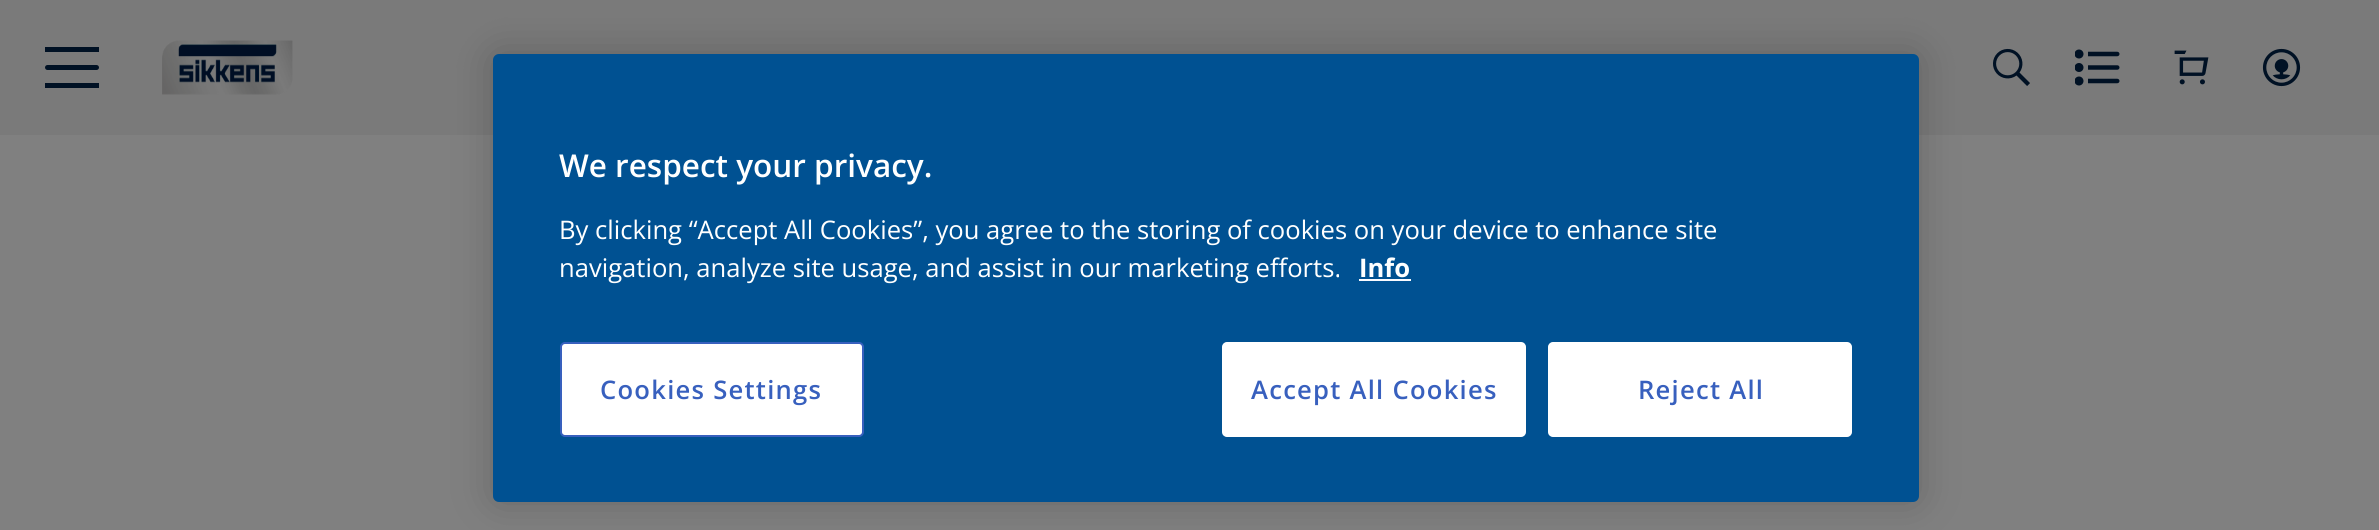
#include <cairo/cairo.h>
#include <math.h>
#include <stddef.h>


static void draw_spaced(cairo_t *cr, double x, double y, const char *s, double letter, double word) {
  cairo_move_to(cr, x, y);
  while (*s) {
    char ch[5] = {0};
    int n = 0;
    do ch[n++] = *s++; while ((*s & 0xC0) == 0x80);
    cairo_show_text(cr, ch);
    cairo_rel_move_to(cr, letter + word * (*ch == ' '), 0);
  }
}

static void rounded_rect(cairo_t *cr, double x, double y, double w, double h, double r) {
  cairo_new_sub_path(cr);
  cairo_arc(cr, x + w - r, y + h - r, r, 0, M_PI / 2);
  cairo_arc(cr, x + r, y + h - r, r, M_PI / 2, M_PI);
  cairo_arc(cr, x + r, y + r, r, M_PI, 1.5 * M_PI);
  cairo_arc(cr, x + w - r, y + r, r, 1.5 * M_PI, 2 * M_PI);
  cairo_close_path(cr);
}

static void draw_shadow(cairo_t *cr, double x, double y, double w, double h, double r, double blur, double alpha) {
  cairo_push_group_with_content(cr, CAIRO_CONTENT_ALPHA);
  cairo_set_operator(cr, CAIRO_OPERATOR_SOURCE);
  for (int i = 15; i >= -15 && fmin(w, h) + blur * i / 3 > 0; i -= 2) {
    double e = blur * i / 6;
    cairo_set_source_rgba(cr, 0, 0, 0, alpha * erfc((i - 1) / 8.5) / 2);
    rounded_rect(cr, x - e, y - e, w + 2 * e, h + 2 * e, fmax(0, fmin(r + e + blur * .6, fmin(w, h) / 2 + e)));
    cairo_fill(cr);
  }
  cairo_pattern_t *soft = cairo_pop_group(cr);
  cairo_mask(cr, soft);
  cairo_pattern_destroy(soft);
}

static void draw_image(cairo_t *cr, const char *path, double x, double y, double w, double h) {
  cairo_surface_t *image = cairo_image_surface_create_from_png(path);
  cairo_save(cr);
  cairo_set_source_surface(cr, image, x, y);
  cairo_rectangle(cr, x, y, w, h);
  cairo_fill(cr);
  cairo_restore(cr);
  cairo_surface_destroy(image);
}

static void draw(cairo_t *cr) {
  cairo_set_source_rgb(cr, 128 / 255.0, 128 / 255.0, 128 / 255.0);
  cairo_paint(cr);
  cairo_set_source_rgb(cr, 122 / 255.0, 122 / 255.0, 122 / 255.0);
  cairo_rectangle(cr, 0, 0, 2379, 135);
  cairo_fill(cr);
  cairo_set_source_rgb(cr, 0, 17 / 255.0, 36 / 255.0);
  rounded_rect(cr, 45, 65, 54, 5, 2.5);
  cairo_fill(cr);
  cairo_rectangle(cr, 45, 47, 54, 5);
  cairo_fill(cr);
  cairo_rectangle(cr, 45, 83, 54, 5);
  cairo_fill(cr);
  draw_image(cr, "images/1.png", 162, 40, 131, 55);
  draw_image(cr, "images/2.png", 1993, 48, 37, 38);
  draw_image(cr, "images/3.png", 2075, 49, 45, 37);
  draw_image(cr, "images/4.png", 2174, 50, 35, 35);
  draw_image(cr, "images/5.png", 2262, 48, 39, 39);
  cairo_set_source_rgb(cr, 0, 0, 0);
  draw_shadow(cr, 493, 54, 1426, 448, 6, 20, 0.2);
  cairo_set_source_rgb(cr, 0, 81 / 255.0, 146 / 255.0);
  rounded_rect(cr, 493, 54, 1426, 448, 6);
  cairo_fill(cr);
  cairo_set_source_rgb(cr, 250 / 255.0, 251 / 255.0, 1);
  cairo_rectangle(cr, 1359, 279, 52, 2);
  cairo_fill(cr);
  cairo_set_source_rgb(cr, 1, 1, 1);
  rounded_rect(cr, 561, 343, 302, 93, 4);
  cairo_fill_preserve(cr);
  cairo_set_source_rgb(cr, 56 / 255.0, 96 / 255.0, 190 / 255.0);
  cairo_stroke(cr);
  cairo_set_source_rgb(cr, 1, 1, 1);
  rounded_rect(cr, 1223, 343, 302, 93, 4);
  cairo_fill_preserve(cr);
  cairo_stroke(cr);
  rounded_rect(cr, 1549, 343, 302, 93, 4);
  cairo_fill_preserve(cr);
  cairo_stroke(cr);
  cairo_select_font_face(cr, "Open Sans SemiBold", CAIRO_FONT_SLANT_NORMAL, CAIRO_FONT_WEIGHT_NORMAL);
  cairo_set_font_size(cr, 31.5);
  cairo_move_to(cr, 559, 177);
  cairo_show_text(cr, "We respect your privacy.");
  cairo_select_font_face(cr, "Open Sans", CAIRO_FONT_SLANT_NORMAL, CAIRO_FONT_WEIGHT_NORMAL);
  cairo_set_font_size(cr, 25.6);
  cairo_move_to(cr, 559, 239);
  cairo_show_text(cr, "By clicking “Accept All Cookies”, you agree to the storing of cookies on your device to enhance site");
  cairo_move_to(cr, 559, 277);
  cairo_show_text(cr, "navigation, analyze site usage, and assist in our marketing efforts.");
  cairo_select_font_face(cr, "Open Sans", CAIRO_FONT_SLANT_NORMAL, CAIRO_FONT_WEIGHT_BOLD);
  cairo_move_to(cr, 1359, 277);
  cairo_show_text(cr, "Info");
  cairo_select_font_face(cr, "Open Sans SemiBold", CAIRO_FONT_SLANT_NORMAL, CAIRO_FONT_WEIGHT_NORMAL);
  cairo_set_source_rgb(cr, 56 / 255.0, 96 / 255.0, 190 / 255.0);
  draw_spaced(cr, 600, 399, "Cookies Settings", 1.25, 0);
  draw_spaced(cr, 1251, 399, "Accept All Cookies", 1.25, 0);
  draw_spaced(cr, 1638, 399, "Reject All", 1.25, 0);
}

int main(void) {
  cairo_surface_t *surface = cairo_image_surface_create(CAIRO_FORMAT_RGB24, 2379, 530);
  cairo_t *cr = cairo_create(surface);
  cairo_font_options_t *options = cairo_font_options_create();
  cairo_font_options_set_hint_metrics(options, CAIRO_HINT_METRICS_OFF);
  cairo_font_options_set_hint_style(options, CAIRO_HINT_STYLE_NONE);
  cairo_set_font_options(cr, options);
  cairo_set_miter_limit(cr, 4);
  draw(cr);
  cairo_surface_write_to_png(surface, "out.png");
  cairo_font_options_destroy(options);
  cairo_destroy(cr);
  cairo_surface_destroy(surface);
  return 0;
}
